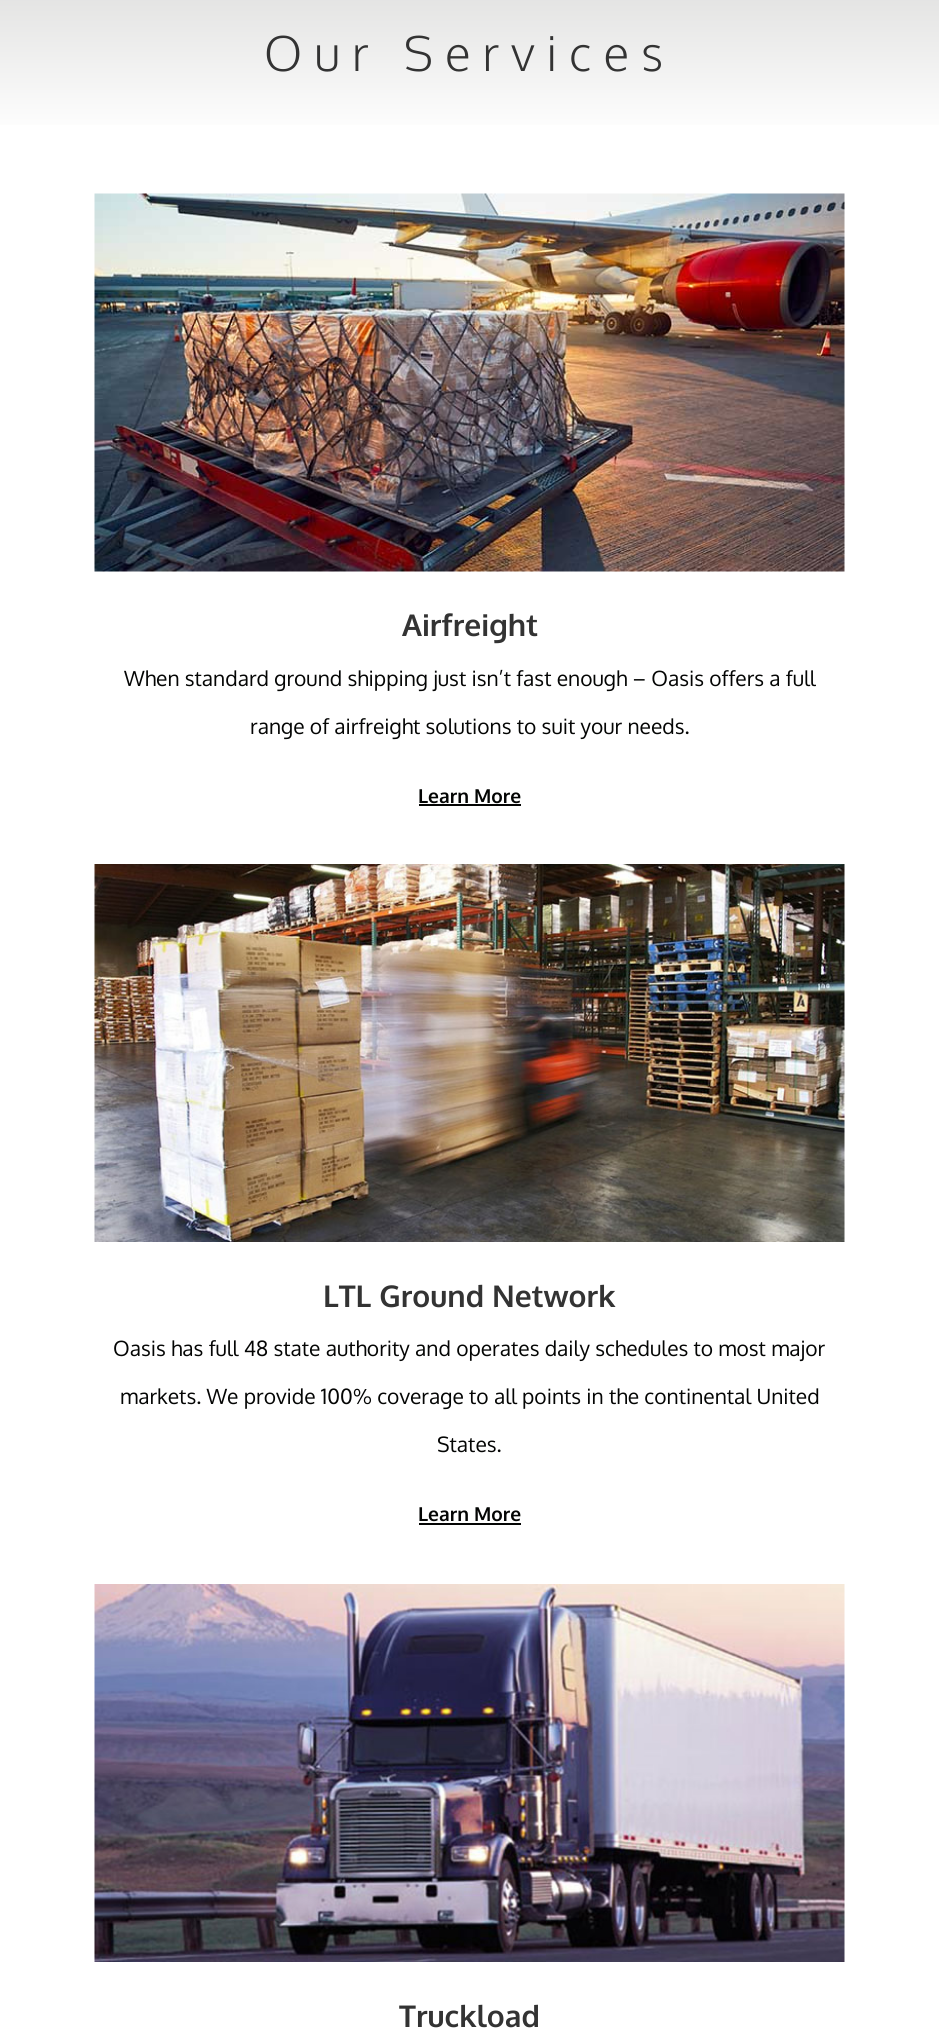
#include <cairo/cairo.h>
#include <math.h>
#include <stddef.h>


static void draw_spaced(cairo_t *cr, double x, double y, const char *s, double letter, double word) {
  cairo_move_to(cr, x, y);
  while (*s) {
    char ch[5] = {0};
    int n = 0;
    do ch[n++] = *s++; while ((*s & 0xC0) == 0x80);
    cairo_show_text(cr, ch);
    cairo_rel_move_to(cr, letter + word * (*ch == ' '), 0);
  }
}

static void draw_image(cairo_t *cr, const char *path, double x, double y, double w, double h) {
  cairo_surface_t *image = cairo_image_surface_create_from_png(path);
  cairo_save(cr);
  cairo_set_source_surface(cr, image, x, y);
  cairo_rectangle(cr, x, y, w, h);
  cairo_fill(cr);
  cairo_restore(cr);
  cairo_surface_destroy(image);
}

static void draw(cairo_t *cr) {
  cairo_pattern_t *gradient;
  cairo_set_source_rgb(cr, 1, 1, 1);
  cairo_paint(cr);
  gradient = cairo_pattern_create_linear(470, -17, 470, 137);
  cairo_pattern_add_color_stop_rgba(gradient, 0, 225 / 255.0, 225 / 255.0, 224 / 255.0, 1);
  cairo_pattern_add_color_stop_rgba(gradient, 1, 1, 1, 1, 1);
  cairo_set_source(cr, gradient);
  cairo_pattern_destroy(gradient);
  cairo_rectangle(cr, 0, 0, 939, 125);
  cairo_fill(cr);
  draw_image(cr, "images/1.png", 94, 193, 751, 379);
  cairo_set_source_rgb(cr, 4 / 255.0, 5 / 255.0, 4 / 255.0);
  cairo_rectangle(cr, 419, 804, 102, 2);
  cairo_fill(cr);
  draw_image(cr, "images/2.png", 94, 864, 751, 378);
  cairo_rectangle(cr, 419, 1523, 102, 2);
  cairo_fill(cr);
  draw_image(cr, "images/3.png", 94, 1584, 751, 378);
  cairo_select_font_face(cr, "Oxygen Light", CAIRO_FONT_SLANT_NORMAL, CAIRO_FONT_WEIGHT_NORMAL);
  cairo_set_font_size(cr, 48);
  cairo_set_source_rgb(cr, 51 / 255.0, 51 / 255.0, 51 / 255.0);
  draw_spaced(cr, 264, 71, "Our Services", 12, 0);
  cairo_select_font_face(cr, "Oxygen", CAIRO_FONT_SLANT_NORMAL, CAIRO_FONT_WEIGHT_BOLD);
  cairo_set_font_size(cr, 30);
  cairo_move_to(cr, 402, 636);
  cairo_show_text(cr, "Airfreight");
  cairo_select_font_face(cr, "Oxygen", CAIRO_FONT_SLANT_NORMAL, CAIRO_FONT_WEIGHT_NORMAL);
  cairo_set_font_size(cr, 21);
  cairo_set_source_rgb(cr, 4 / 255.0, 5 / 255.0, 4 / 255.0);
  cairo_move_to(cr, 124, 686);
  cairo_show_text(cr, "When standard ground shipping just isn’t fast enough – Oasis offers a full");
  cairo_move_to(cr, 250, 734);
  cairo_show_text(cr, "range of airfreight solutions to suit your needs.");
  cairo_select_font_face(cr, "Oxygen", CAIRO_FONT_SLANT_NORMAL, CAIRO_FONT_WEIGHT_BOLD);
  cairo_set_font_size(cr, 19.25);
  cairo_move_to(cr, 418, 803);
  cairo_show_text(cr, "Learn More");
  cairo_set_font_size(cr, 30);
  cairo_set_source_rgb(cr, 51 / 255.0, 51 / 255.0, 51 / 255.0);
  cairo_move_to(cr, 323, 1307);
  cairo_show_text(cr, "LTL Ground Network");
  cairo_select_font_face(cr, "Oxygen", CAIRO_FONT_SLANT_NORMAL, CAIRO_FONT_WEIGHT_NORMAL);
  cairo_set_font_size(cr, 21);
  cairo_set_source_rgb(cr, 4 / 255.0, 5 / 255.0, 4 / 255.0);
  cairo_move_to(cr, 113, 1356);
  cairo_show_text(cr, "Oasis has full 48 state authority and operates daily schedules to most major");
  cairo_move_to(cr, 120, 1404);
  cairo_show_text(cr, "markets. We provide 100% coverage to all points in the continental United");
  cairo_move_to(cr, 437, 1452);
  cairo_show_text(cr, "States.");
  cairo_select_font_face(cr, "Oxygen", CAIRO_FONT_SLANT_NORMAL, CAIRO_FONT_WEIGHT_BOLD);
  cairo_set_font_size(cr, 19.25);
  cairo_move_to(cr, 418, 1521);
  cairo_show_text(cr, "Learn More");
  cairo_set_font_size(cr, 30);
  cairo_set_source_rgb(cr, 51 / 255.0, 51 / 255.0, 51 / 255.0);
  cairo_move_to(cr, 399, 2027);
  cairo_show_text(cr, "Truckload");
}

int main(void) {
  cairo_surface_t *surface = cairo_image_surface_create(CAIRO_FORMAT_RGB24, 939, 2039);
  cairo_t *cr = cairo_create(surface);
  cairo_font_options_t *options = cairo_font_options_create();
  cairo_font_options_set_hint_metrics(options, CAIRO_HINT_METRICS_OFF);
  cairo_font_options_set_hint_style(options, CAIRO_HINT_STYLE_NONE);
  cairo_set_font_options(cr, options);
  cairo_set_miter_limit(cr, 4);
  draw(cr);
  cairo_surface_write_to_png(surface, "out.png");
  cairo_font_options_destroy(options);
  cairo_destroy(cr);
  cairo_surface_destroy(surface);
  return 0;
}
